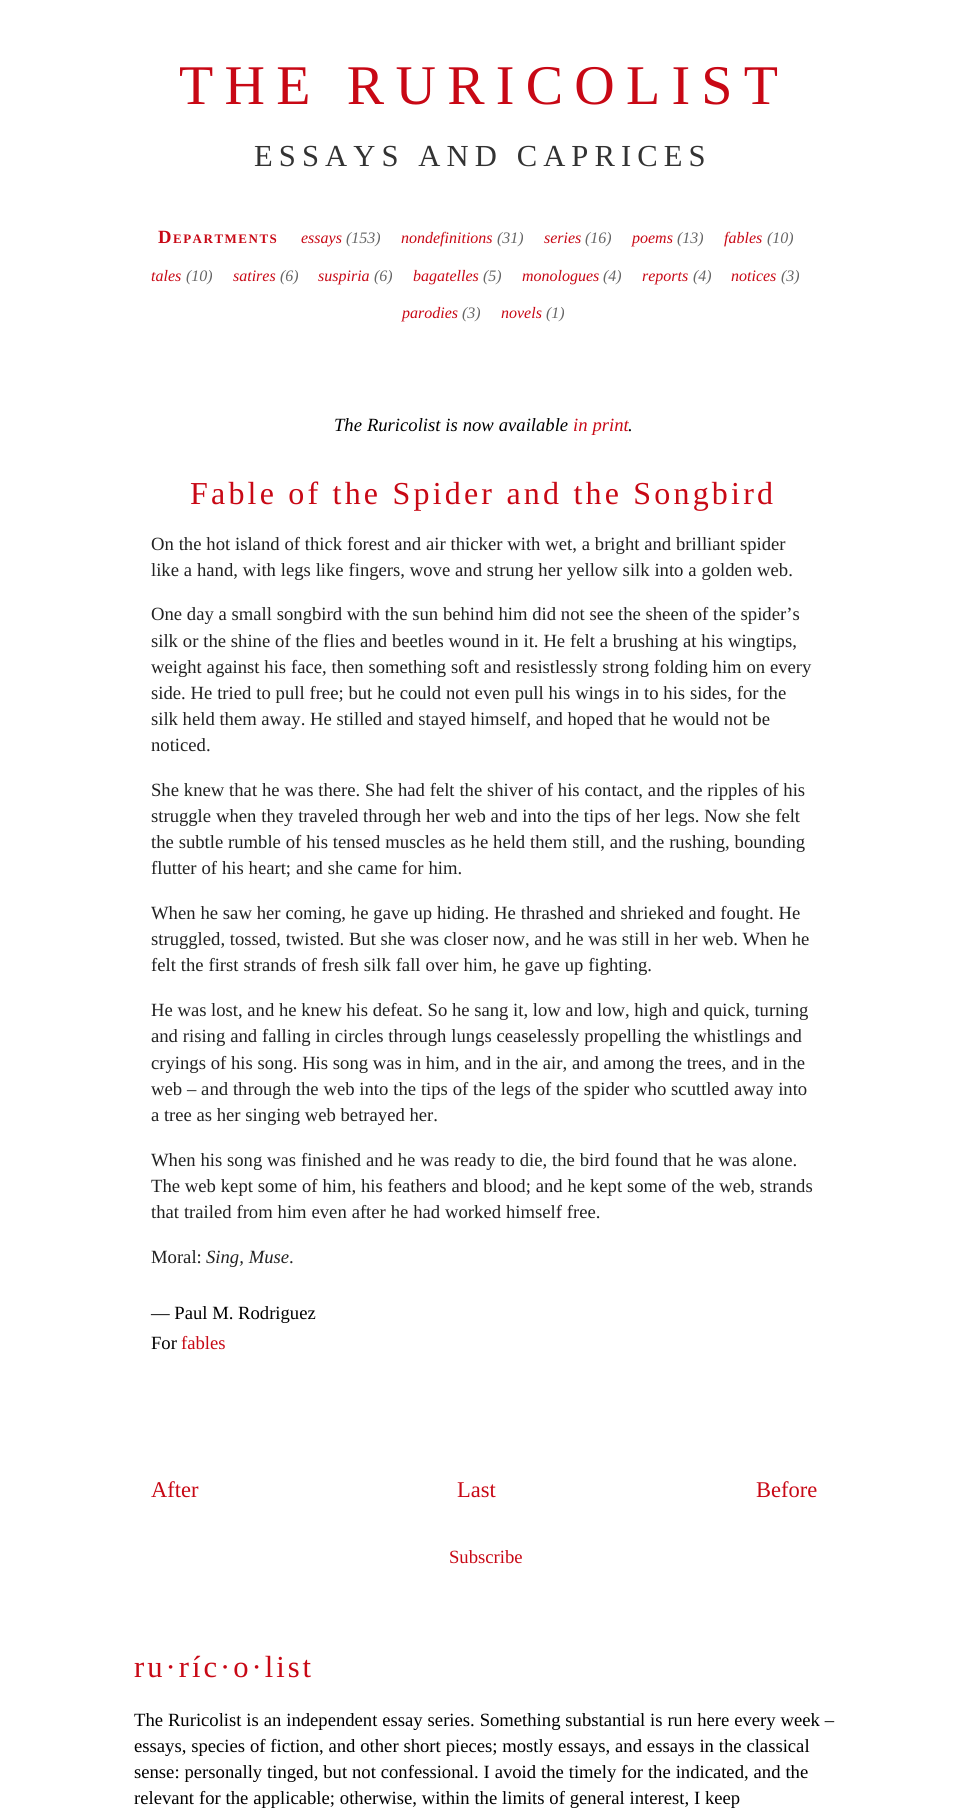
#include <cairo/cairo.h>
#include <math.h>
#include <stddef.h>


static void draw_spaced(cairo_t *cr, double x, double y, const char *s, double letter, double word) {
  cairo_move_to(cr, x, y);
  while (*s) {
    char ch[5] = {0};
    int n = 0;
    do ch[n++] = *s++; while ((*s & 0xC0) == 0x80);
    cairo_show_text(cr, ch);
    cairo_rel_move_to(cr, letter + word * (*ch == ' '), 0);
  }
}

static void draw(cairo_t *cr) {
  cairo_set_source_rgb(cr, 1, 1, 1);
  cairo_paint(cr);
  cairo_select_font_face(cr, "Liberation Serif", CAIRO_FONT_SLANT_NORMAL, CAIRO_FONT_WEIGHT_NORMAL);
  cairo_set_font_size(cr, 56);
  cairo_set_source_rgb(cr, 200 / 255.0, 8 / 255.0, 21 / 255.0);
  draw_spaced(cr, 179, 104, "THE RURICOLIST", 11.25, 0);
  cairo_set_font_size(cr, 30.6);
  cairo_set_source_rgb(cr, 51 / 255.0, 51 / 255.0, 51 / 255.0);
  draw_spaced(cr, 254, 166, "ESSAYS AND CAPRICES", 6.1, 0);
  cairo_select_font_face(cr, "Liberation Serif", CAIRO_FONT_SLANT_NORMAL, CAIRO_FONT_WEIGHT_BOLD);
  cairo_set_font_size(cr, 18.65);
  cairo_set_source_rgb(cr, 200 / 255.0, 8 / 255.0, 21 / 255.0);
  draw_spaced(cr, 158, 243, "D", 1.5, 0);
  cairo_select_font_face(cr, "Liberation Serif", CAIRO_FONT_SLANT_ITALIC, CAIRO_FONT_WEIGHT_NORMAL);
  cairo_set_font_size(cr, 16);
  cairo_move_to(cr, 301, 243);
  cairo_show_text(cr, "essays");
  cairo_set_source_rgb(cr, 102 / 255.0, 102 / 255.0, 102 / 255.0);
  cairo_move_to(cr, 346, 243);
  cairo_show_text(cr, "(153)");
  cairo_set_source_rgb(cr, 200 / 255.0, 8 / 255.0, 21 / 255.0);
  cairo_move_to(cr, 401, 243);
  cairo_show_text(cr, "nondefinitions");
  cairo_set_source_rgb(cr, 102 / 255.0, 102 / 255.0, 102 / 255.0);
  cairo_move_to(cr, 497, 243);
  cairo_show_text(cr, "(31)");
  cairo_set_source_rgb(cr, 200 / 255.0, 8 / 255.0, 21 / 255.0);
  cairo_move_to(cr, 544, 243);
  cairo_show_text(cr, "series");
  cairo_set_source_rgb(cr, 102 / 255.0, 102 / 255.0, 102 / 255.0);
  cairo_move_to(cr, 585, 243);
  cairo_show_text(cr, "(16)");
  cairo_set_source_rgb(cr, 200 / 255.0, 8 / 255.0, 21 / 255.0);
  cairo_move_to(cr, 632, 243);
  cairo_show_text(cr, "poems");
  cairo_set_source_rgb(cr, 102 / 255.0, 102 / 255.0, 102 / 255.0);
  cairo_move_to(cr, 677, 243);
  cairo_show_text(cr, "(13)");
  cairo_set_source_rgb(cr, 200 / 255.0, 8 / 255.0, 21 / 255.0);
  cairo_move_to(cr, 724, 243);
  cairo_show_text(cr, "fables");
  cairo_set_source_rgb(cr, 102 / 255.0, 102 / 255.0, 102 / 255.0);
  cairo_move_to(cr, 767, 243);
  cairo_show_text(cr, "(10)");
  cairo_set_source_rgb(cr, 200 / 255.0, 8 / 255.0, 21 / 255.0);
  cairo_move_to(cr, 151, 281);
  cairo_show_text(cr, "tales");
  cairo_set_source_rgb(cr, 102 / 255.0, 102 / 255.0, 102 / 255.0);
  cairo_move_to(cr, 186, 281);
  cairo_show_text(cr, "(10)");
  cairo_set_source_rgb(cr, 200 / 255.0, 8 / 255.0, 21 / 255.0);
  cairo_move_to(cr, 233, 281);
  cairo_show_text(cr, "satires");
  cairo_set_source_rgb(cr, 102 / 255.0, 102 / 255.0, 102 / 255.0);
  cairo_move_to(cr, 280, 281);
  cairo_show_text(cr, "(6)");
  cairo_set_source_rgb(cr, 200 / 255.0, 8 / 255.0, 21 / 255.0);
  cairo_move_to(cr, 318, 281);
  cairo_show_text(cr, "suspiria");
  cairo_set_source_rgb(cr, 102 / 255.0, 102 / 255.0, 102 / 255.0);
  cairo_move_to(cr, 374, 281);
  cairo_show_text(cr, "(6)");
  cairo_set_source_rgb(cr, 200 / 255.0, 8 / 255.0, 21 / 255.0);
  cairo_move_to(cr, 413, 281);
  cairo_show_text(cr, "bagatelles");
  cairo_set_source_rgb(cr, 102 / 255.0, 102 / 255.0, 102 / 255.0);
  cairo_move_to(cr, 483, 281);
  cairo_show_text(cr, "(5)");
  cairo_set_source_rgb(cr, 200 / 255.0, 8 / 255.0, 21 / 255.0);
  cairo_move_to(cr, 522, 281);
  cairo_show_text(cr, "monologues");
  cairo_set_source_rgb(cr, 102 / 255.0, 102 / 255.0, 102 / 255.0);
  cairo_move_to(cr, 603, 281);
  cairo_show_text(cr, "(4)");
  cairo_set_source_rgb(cr, 200 / 255.0, 8 / 255.0, 21 / 255.0);
  cairo_move_to(cr, 642, 281);
  cairo_show_text(cr, "reports");
  cairo_set_source_rgb(cr, 102 / 255.0, 102 / 255.0, 102 / 255.0);
  cairo_move_to(cr, 693, 281);
  cairo_show_text(cr, "(4)");
  cairo_set_source_rgb(cr, 200 / 255.0, 8 / 255.0, 21 / 255.0);
  cairo_move_to(cr, 731, 281);
  cairo_show_text(cr, "notices");
  cairo_set_source_rgb(cr, 102 / 255.0, 102 / 255.0, 102 / 255.0);
  cairo_move_to(cr, 781, 281);
  cairo_show_text(cr, "(3)");
  cairo_set_source_rgb(cr, 200 / 255.0, 8 / 255.0, 21 / 255.0);
  cairo_move_to(cr, 402, 318);
  cairo_show_text(cr, "parodies");
  cairo_set_source_rgb(cr, 102 / 255.0, 102 / 255.0, 102 / 255.0);
  cairo_move_to(cr, 462, 318);
  cairo_show_text(cr, "(3)");
  cairo_set_source_rgb(cr, 200 / 255.0, 8 / 255.0, 21 / 255.0);
  cairo_move_to(cr, 501, 318);
  cairo_show_text(cr, "novels");
  cairo_set_source_rgb(cr, 102 / 255.0, 102 / 255.0, 102 / 255.0);
  cairo_move_to(cr, 546, 318);
  cairo_show_text(cr, "(1)");
  cairo_select_font_face(cr, "Liberation Serif", CAIRO_FONT_SLANT_NORMAL, CAIRO_FONT_WEIGHT_BOLD);
  cairo_set_font_size(cr, 13);
  cairo_set_source_rgb(cr, 200 / 255.0, 8 / 255.0, 21 / 255.0);
  draw_spaced(cr, 173, 243, "EPARTMENTS", 1.5, 0);
  cairo_select_font_face(cr, "Liberation Serif", CAIRO_FONT_SLANT_ITALIC, CAIRO_FONT_WEIGHT_NORMAL);
  cairo_set_font_size(cr, 18.65);
  cairo_set_source_rgb(cr, 0, 0, 0);
  draw_spaced(cr, 334, 431, "The Ruricolist is now available", 0, 0.25);
  cairo_set_source_rgb(cr, 200 / 255.0, 8 / 255.0, 21 / 255.0);
  draw_spaced(cr, 573, 431, "in print", 0, 0.25);
  cairo_set_source_rgb(cr, 0, 0, 0);
  cairo_move_to(cr, 628, 431);
  cairo_show_text(cr, ".");
  cairo_select_font_face(cr, "Liberation Serif", CAIRO_FONT_SLANT_NORMAL, CAIRO_FONT_WEIGHT_NORMAL);
  cairo_set_font_size(cr, 32);
  cairo_set_source_rgb(cr, 200 / 255.0, 8 / 255.0, 21 / 255.0);
  draw_spaced(cr, 190, 504, "Fable of the Spider and the Songbird", 3.2, 0);
  cairo_set_font_size(cr, 18.65);
  cairo_set_source_rgb(cr, 34 / 255.0, 34 / 255.0, 34 / 255.0);
  draw_spaced(cr, 151, 550, "On the hot island of thick forest and air thicker with wet, a bright and brilliant spider", 0, 0.2);
  draw_spaced(cr, 151, 576, "like a hand, with legs like fingers, wove and strung her yellow silk into a golden web.", 0, 0.2);
  draw_spaced(cr, 151, 620, "One day a small songbird with the sun behind him did not see the sheen of the spider’s", 0, 0.1);
  draw_spaced(cr, 151, 647, "silk or the shine of the flies and beetles wound in it. He felt a brushing at his wingtips,", 0, 0.2);
  draw_spaced(cr, 151, 673, "weight against his face, then something soft and resistlessly strong folding him on every", 0, 0.2);
  draw_spaced(cr, 151, 699, "side. He tried to pull free; but he could not even pull his wings in to his sides, for the", 0, 0.2);
  cairo_move_to(cr, 151, 725);
  cairo_show_text(cr, "silk held them away. He stilled and stayed himself, and hoped that he would not be");
  cairo_move_to(cr, 151, 751);
  cairo_show_text(cr, "noticed.");
  draw_spaced(cr, 151, 796, "She knew that he was there. She had felt the shiver of his contact, and the ripples of his", 0, 0.2);
  draw_spaced(cr, 151, 822, "struggle when they traveled through her web and into the tips of her legs. Now she felt", 0, 0.2);
  draw_spaced(cr, 151, 848, "the subtle rumble of his tensed muscles as he held them still, and the rushing, bounding", 0, 0.2);
  draw_spaced(cr, 151, 874, "flutter of his heart; and she came for him.", 0, 0.25);
  draw_spaced(cr, 151, 919, "When he saw her coming, he gave up hiding. He thrashed and shrieked and fought. He", 0, 0.2);
  cairo_move_to(cr, 151, 945);
  cairo_show_text(cr, "struggled, tossed, twisted. But she was closer now, and he was still in her web. When he");
  draw_spaced(cr, 151, 971, "felt the first strands of fresh silk fall over him, he gave up fighting.", 0, 0.25);
  cairo_move_to(cr, 151, 1016);
  cairo_show_text(cr, "He was lost, and he knew his defeat. So he sang it, low and low, high and quick, turning");
  draw_spaced(cr, 151, 1042, "and rising and falling in circles through lungs ceaselessly propelling the whistlings and", 0, 0.2);
  draw_spaced(cr, 151, 1069, "cryings of his song. His song was in him, and in the air, and among the trees, and in the", 0, 0.1);
  draw_spaced(cr, 151, 1095, "web – and through the web into the tips of the legs of the spider who scuttled away into", 0, 0.2);
  cairo_move_to(cr, 151, 1121);
  cairo_show_text(cr, "a tree as her singing web betrayed her.");
  draw_spaced(cr, 151, 1166, "When his song was finished and he was ready to die, the bird found that he was alone.", 0, 0.2);
  draw_spaced(cr, 151, 1192, "The web kept some of him, his feathers and blood; and he kept some of the web, strands", 0, 0.2);
  draw_spaced(cr, 151, 1218, "that trailed from him even after he had worked himself free.", 0, 0.25);
  cairo_move_to(cr, 151, 1263);
  cairo_show_text(cr, "Moral:");
  cairo_select_font_face(cr, "Liberation Serif", CAIRO_FONT_SLANT_ITALIC, CAIRO_FONT_WEIGHT_NORMAL);
  draw_spaced(cr, 206, 1263, "Sing, Muse", 0, 0.25);
  cairo_select_font_face(cr, "Liberation Serif", CAIRO_FONT_SLANT_NORMAL, CAIRO_FONT_WEIGHT_NORMAL);
  cairo_move_to(cr, 289, 1263);
  cairo_show_text(cr, ".");
  cairo_set_source_rgb(cr, 0, 0, 0);
  cairo_move_to(cr, 151, 1319);
  cairo_show_text(cr, "— Paul M. Rodriguez");
  cairo_move_to(cr, 151, 1349);
  cairo_show_text(cr, "For");
  cairo_set_source_rgb(cr, 200 / 255.0, 8 / 255.0, 21 / 255.0);
  cairo_move_to(cr, 181, 1349);
  cairo_show_text(cr, "fables");
  cairo_set_font_size(cr, 22.5);
  cairo_move_to(cr, 151, 1497);
  cairo_show_text(cr, "After");
  cairo_move_to(cr, 457, 1497);
  cairo_show_text(cr, "Last");
  cairo_move_to(cr, 756, 1497);
  cairo_show_text(cr, "Before");
  cairo_set_font_size(cr, 18.65);
  cairo_move_to(cr, 449, 1563);
  cairo_show_text(cr, "Subscribe");
  cairo_set_font_size(cr, 30.6);
  draw_spaced(cr, 134, 1677, "ru·ríc·o·list", 3, 0);
  cairo_set_font_size(cr, 18.65);
  cairo_set_source_rgb(cr, 0, 0, 0);
  draw_spaced(cr, 134, 1726, "The Ruricolist is an independent essay series. Something substantial is run here every week –", 0, 0.25);
  draw_spaced(cr, 134, 1752, "essays, species of fiction, and other short pieces; mostly essays, and essays in the classical", 0, 0.2);
  draw_spaced(cr, 134, 1778, "sense: personally tinged, but not confessional. I avoid the timely for the indicated, and the", 0, 0.25);
  draw_spaced(cr, 134, 1804, "relevant for the applicable; otherwise, within the limits of general interest, I keep", 0, 0.2);
}

int main(void) {
  cairo_surface_t *surface = cairo_image_surface_create(CAIRO_FORMAT_RGB24, 967, 1808);
  cairo_t *cr = cairo_create(surface);
  cairo_font_options_t *options = cairo_font_options_create();
  cairo_font_options_set_hint_metrics(options, CAIRO_HINT_METRICS_OFF);
  cairo_font_options_set_hint_style(options, CAIRO_HINT_STYLE_NONE);
  cairo_set_font_options(cr, options);
  cairo_set_miter_limit(cr, 4);
  draw(cr);
  cairo_surface_write_to_png(surface, "out.png");
  cairo_font_options_destroy(options);
  cairo_destroy(cr);
  cairo_surface_destroy(surface);
  return 0;
}
